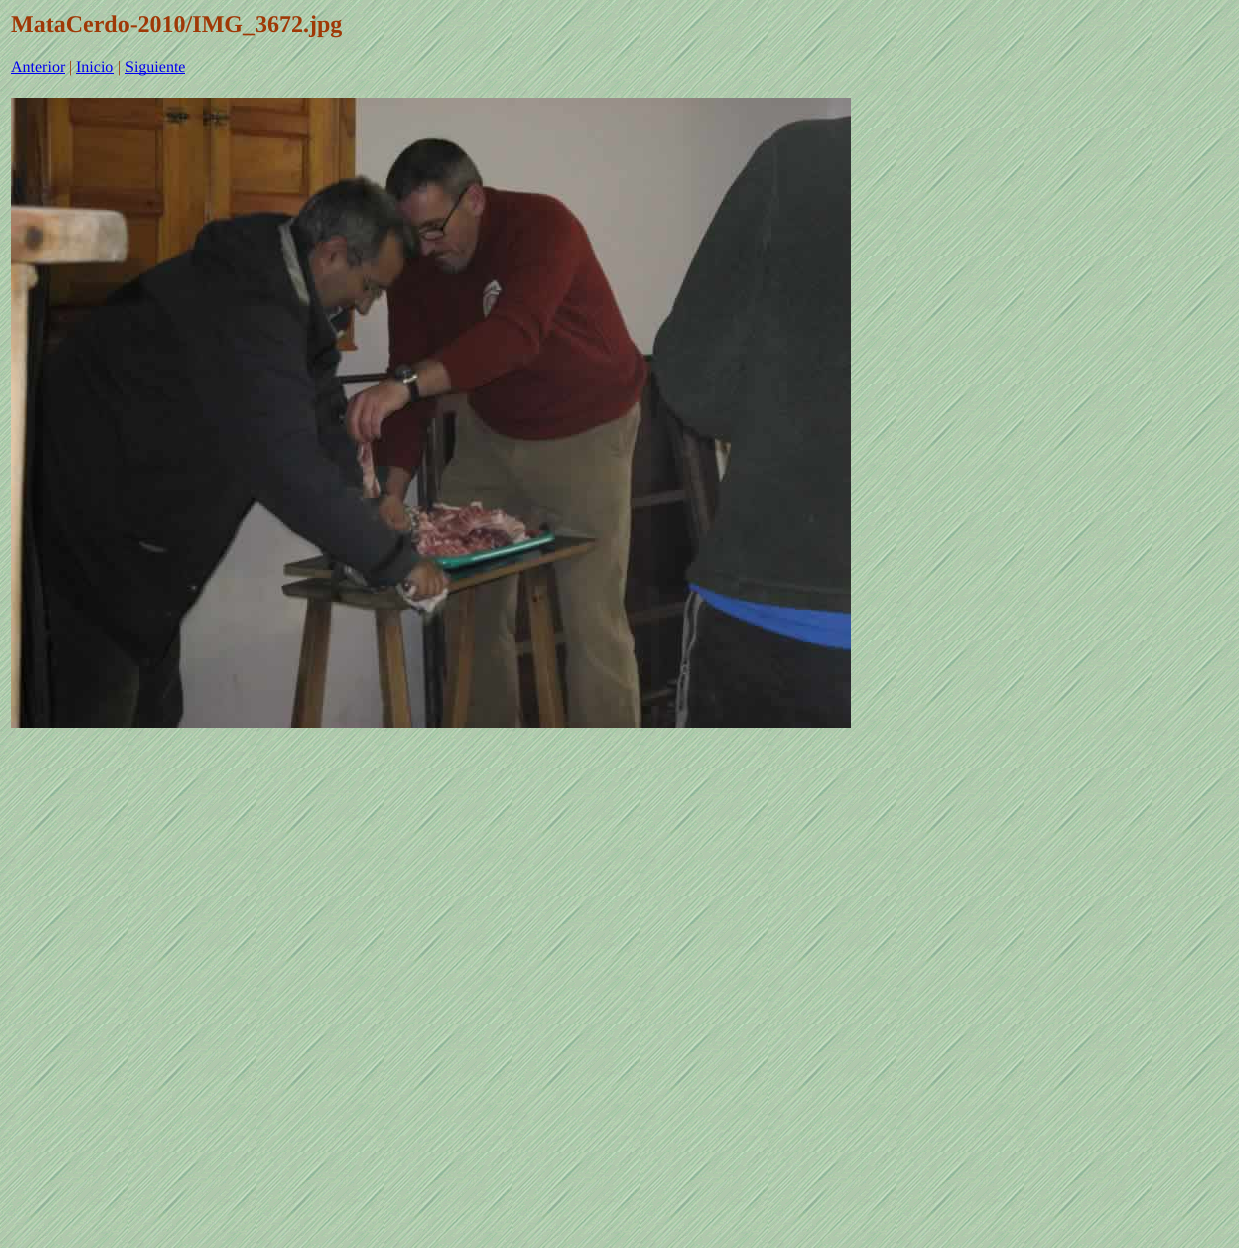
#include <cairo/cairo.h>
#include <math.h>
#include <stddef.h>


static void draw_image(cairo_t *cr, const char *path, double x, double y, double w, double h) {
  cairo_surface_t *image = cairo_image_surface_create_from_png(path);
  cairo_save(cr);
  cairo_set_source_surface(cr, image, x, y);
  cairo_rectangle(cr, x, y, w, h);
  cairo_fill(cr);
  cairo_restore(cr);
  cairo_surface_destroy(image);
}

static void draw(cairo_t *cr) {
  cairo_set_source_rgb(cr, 1, 1, 1);
  cairo_paint(cr);
  draw_image(cr, "images/1.png", 0, 0, 1239, 1248);
  cairo_set_source_rgb(cr, 0, 0, 238 / 255.0);
  cairo_rectangle(cr, 11, 73, 54, 1);
  cairo_fill(cr);
  cairo_rectangle(cr, 76, 73, 38, 1);
  cairo_fill(cr);
  cairo_rectangle(cr, 125, 73, 60, 1);
  cairo_fill(cr);
  draw_image(cr, "images/2.png", 11, 98, 840, 630);
  cairo_select_font_face(cr, "Liberation Serif", CAIRO_FONT_SLANT_NORMAL, CAIRO_FONT_WEIGHT_BOLD);
  cairo_set_font_size(cr, 24);
  cairo_set_source_rgb(cr, 159 / 255.0, 56 / 255.0, 6 / 255.0);
  cairo_move_to(cr, 11, 32);
  cairo_show_text(cr, "MataCerdo-2010/IMG_3672.jpg");
  cairo_select_font_face(cr, "Liberation Serif", CAIRO_FONT_SLANT_NORMAL, CAIRO_FONT_WEIGHT_NORMAL);
  cairo_set_font_size(cr, 16);
  cairo_set_source_rgb(cr, 0, 0, 238 / 255.0);
  cairo_move_to(cr, 11, 72);
  cairo_show_text(cr, "Anterior");
  cairo_set_source_rgb(cr, 159 / 255.0, 56 / 255.0, 6 / 255.0);
  cairo_move_to(cr, 69, 72);
  cairo_show_text(cr, "|");
  cairo_set_source_rgb(cr, 0, 0, 238 / 255.0);
  cairo_move_to(cr, 76, 72);
  cairo_show_text(cr, "Inicio");
  cairo_set_source_rgb(cr, 159 / 255.0, 56 / 255.0, 6 / 255.0);
  cairo_move_to(cr, 118, 72);
  cairo_show_text(cr, "|");
  cairo_set_source_rgb(cr, 0, 0, 238 / 255.0);
  cairo_move_to(cr, 125, 72);
  cairo_show_text(cr, "Siguiente");
}

int main(void) {
  cairo_surface_t *surface = cairo_image_surface_create(CAIRO_FORMAT_RGB24, 1239, 1248);
  cairo_t *cr = cairo_create(surface);
  cairo_font_options_t *options = cairo_font_options_create();
  cairo_font_options_set_hint_metrics(options, CAIRO_HINT_METRICS_OFF);
  cairo_font_options_set_hint_style(options, CAIRO_HINT_STYLE_NONE);
  cairo_set_font_options(cr, options);
  cairo_set_miter_limit(cr, 4);
  draw(cr);
  cairo_surface_write_to_png(surface, "out.png");
  cairo_font_options_destroy(options);
  cairo_destroy(cr);
  cairo_surface_destroy(surface);
  return 0;
}
